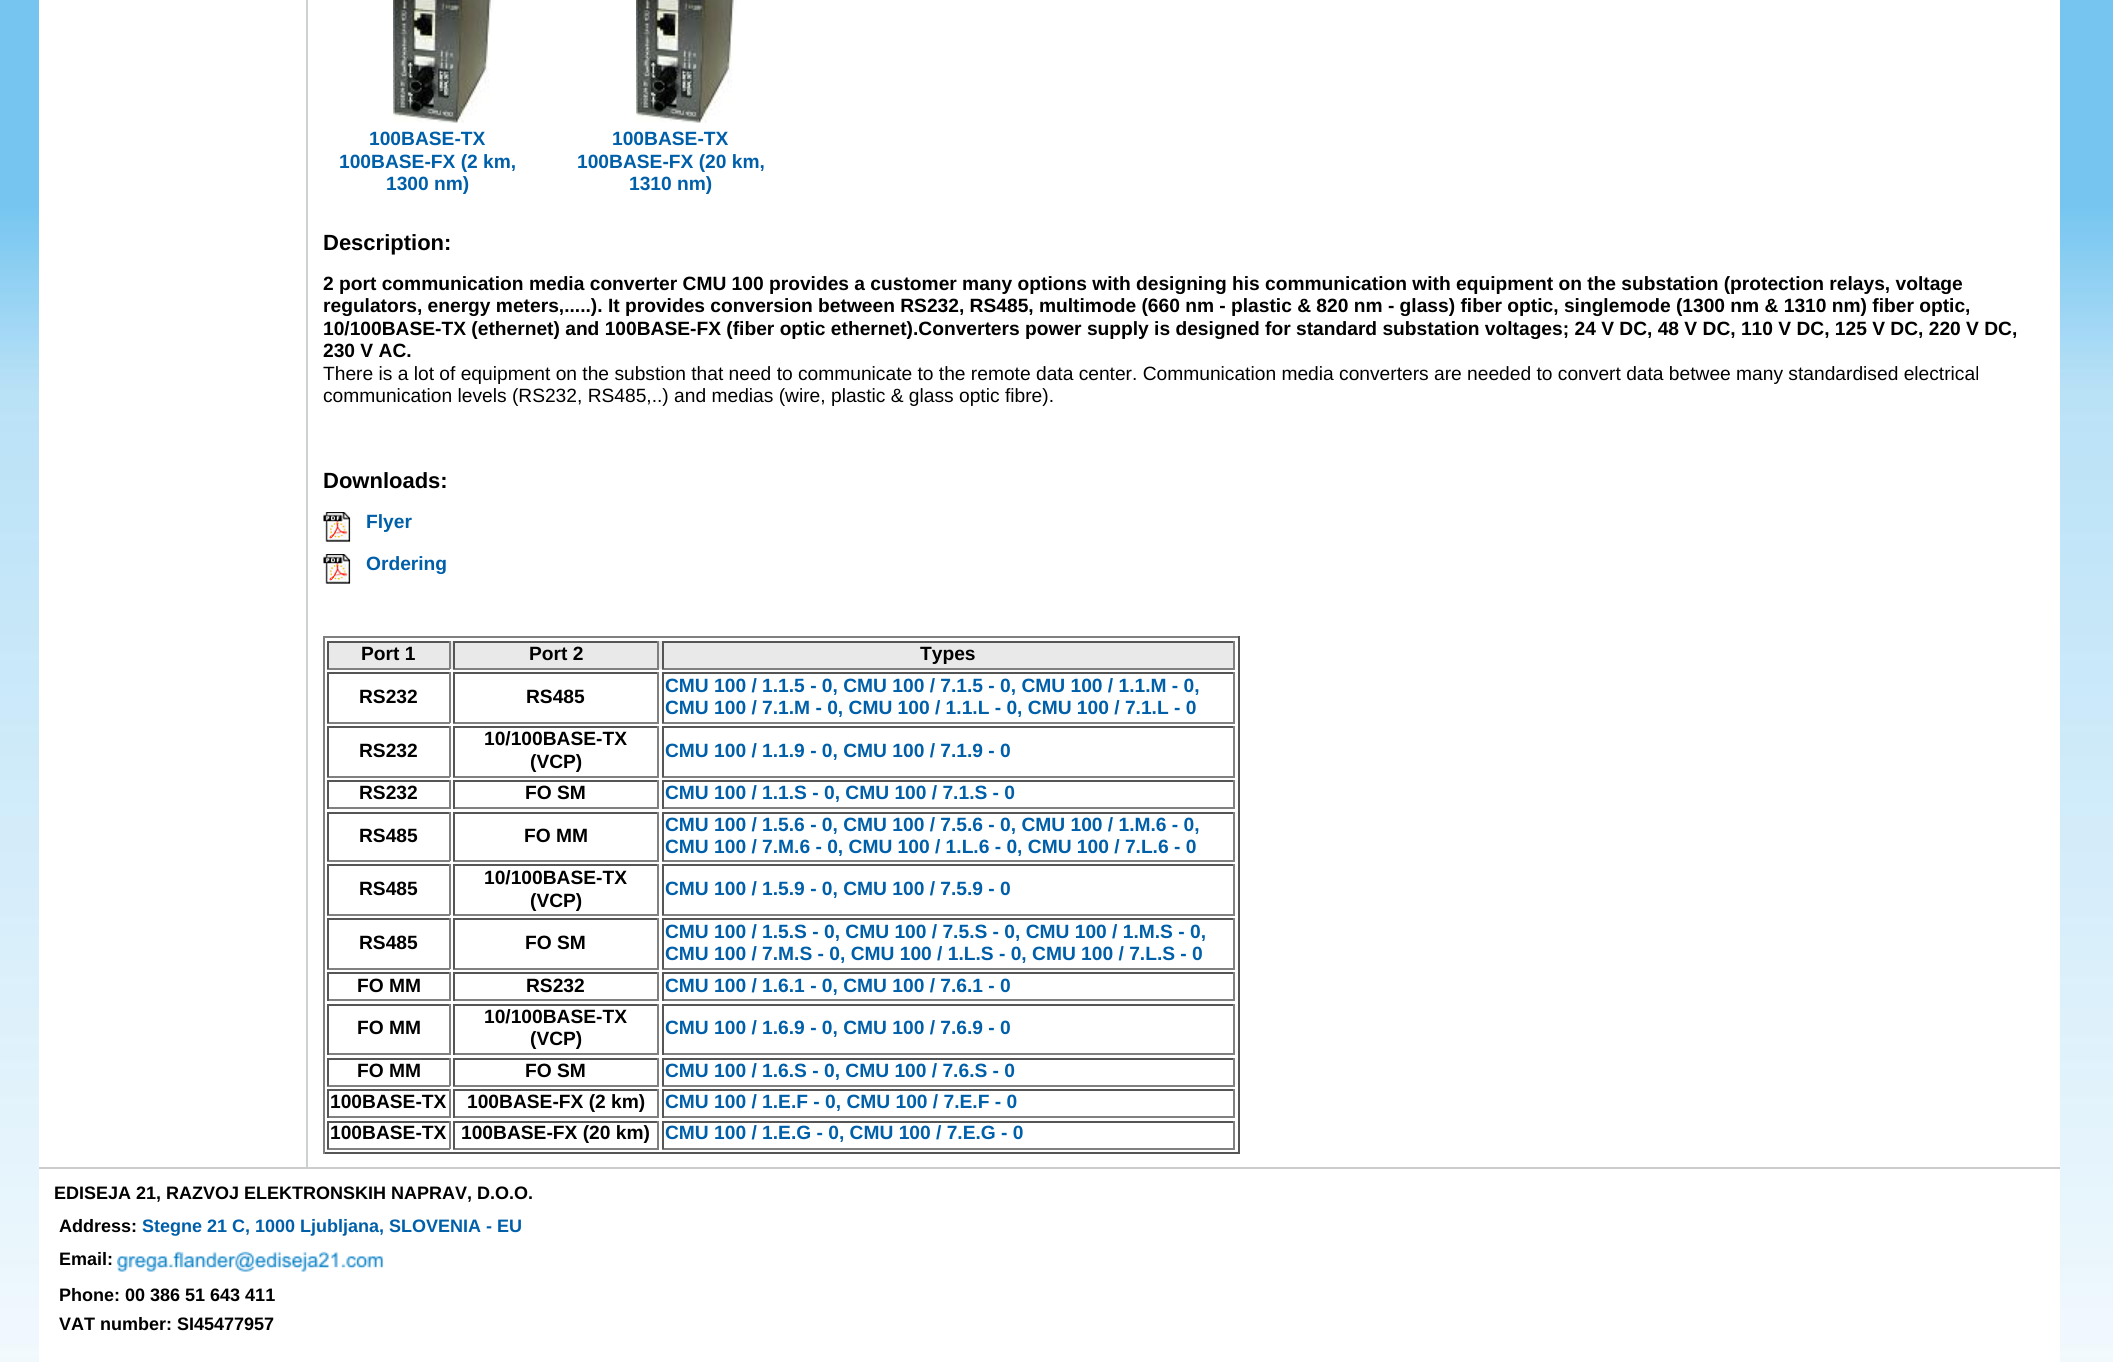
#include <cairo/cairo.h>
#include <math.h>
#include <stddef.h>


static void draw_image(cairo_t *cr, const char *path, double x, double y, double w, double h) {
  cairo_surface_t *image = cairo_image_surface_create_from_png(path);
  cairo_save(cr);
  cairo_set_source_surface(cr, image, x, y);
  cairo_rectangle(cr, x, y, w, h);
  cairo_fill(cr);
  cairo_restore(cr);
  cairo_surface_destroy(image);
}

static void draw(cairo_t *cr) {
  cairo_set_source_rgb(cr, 1, 1, 1);
  cairo_paint(cr);
  draw_image(cr, "images/1.png", 0, 0, 2113, 1362);
  cairo_set_source_rgb(cr, 1, 1, 1);
  cairo_rectangle(cr, 39, 0, 2021, 1362);
  cairo_fill(cr);
  cairo_set_source_rgb(cr, 204 / 255.0, 210 / 255.0, 210 / 255.0);
  cairo_rectangle(cr, 306, 0, 2, 1169);
  cairo_fill(cr);
  draw_image(cr, "images/2.png", 393, 0, 101, 123);
  draw_image(cr, "images/3.png", 636, 0, 101, 123);
  draw_image(cr, "images/4.png", 323, 512, 28, 30);
  draw_image(cr, "images/4.png", 323, 554, 28, 30);
  cairo_set_source_rgb(cr, 128 / 255.0, 128 / 255.0, 128 / 255.0);
  cairo_rectangle(cr, 323, 636, 916, 2);
  cairo_fill(cr);
  cairo_set_source_rgb(cr, 85 / 255.0, 85 / 255.0, 85 / 255.0);
  cairo_rectangle(cr, 1238, 636, 2, 518);
  cairo_fill(cr);
  cairo_rectangle(cr, 323, 1152, 916, 2);
  cairo_fill(cr);
  cairo_set_source_rgb(cr, 128 / 255.0, 128 / 255.0, 128 / 255.0);
  cairo_rectangle(cr, 323, 636, 2, 518);
  cairo_fill(cr);
  cairo_set_source_rgb(cr, 233 / 255.0, 233 / 255.0, 233 / 255.0);
  cairo_rectangle(cr, 329, 641, 904, 28);
  cairo_fill(cr);
  cairo_set_source_rgb(cr, 85 / 255.0, 85 / 255.0, 85 / 255.0);
  cairo_rectangle(cr, 327, 641, 123, 2);
  cairo_fill(cr);
  cairo_set_source_rgb(cr, 128 / 255.0, 128 / 255.0, 128 / 255.0);
  cairo_rectangle(cr, 449, 641, 2, 28);
  cairo_fill(cr);
  cairo_rectangle(cr, 327, 668, 123, 2);
  cairo_fill(cr);
  cairo_set_source_rgb(cr, 85 / 255.0, 85 / 255.0, 85 / 255.0);
  cairo_rectangle(cr, 327, 641, 2, 28);
  cairo_fill(cr);
  cairo_rectangle(cr, 453, 641, 206, 2);
  cairo_fill(cr);
  cairo_set_source_rgb(cr, 128 / 255.0, 128 / 255.0, 128 / 255.0);
  cairo_rectangle(cr, 657, 641, 2, 28);
  cairo_fill(cr);
  cairo_rectangle(cr, 453, 668, 206, 2);
  cairo_fill(cr);
  cairo_set_source_rgb(cr, 85 / 255.0, 85 / 255.0, 85 / 255.0);
  cairo_rectangle(cr, 453, 641, 2, 28);
  cairo_fill(cr);
  cairo_rectangle(cr, 662, 641, 573, 2);
  cairo_fill(cr);
  cairo_set_source_rgb(cr, 128 / 255.0, 128 / 255.0, 128 / 255.0);
  cairo_rectangle(cr, 1233, 641, 2, 28);
  cairo_fill(cr);
  cairo_rectangle(cr, 662, 668, 573, 2);
  cairo_fill(cr);
  cairo_set_source_rgb(cr, 85 / 255.0, 85 / 255.0, 85 / 255.0);
  cairo_rectangle(cr, 662, 641, 2, 28);
  cairo_fill(cr);
  cairo_rectangle(cr, 327, 672, 123, 2);
  cairo_fill(cr);
  cairo_set_source_rgb(cr, 128 / 255.0, 128 / 255.0, 128 / 255.0);
  cairo_rectangle(cr, 449, 672, 2, 51);
  cairo_fill(cr);
  cairo_rectangle(cr, 327, 722, 123, 2);
  cairo_fill(cr);
  cairo_set_source_rgb(cr, 85 / 255.0, 85 / 255.0, 85 / 255.0);
  cairo_rectangle(cr, 327, 672, 2, 51);
  cairo_fill(cr);
  cairo_rectangle(cr, 453, 672, 206, 2);
  cairo_fill(cr);
  cairo_set_source_rgb(cr, 128 / 255.0, 128 / 255.0, 128 / 255.0);
  cairo_rectangle(cr, 657, 672, 2, 51);
  cairo_fill(cr);
  cairo_rectangle(cr, 453, 722, 206, 2);
  cairo_fill(cr);
  cairo_set_source_rgb(cr, 85 / 255.0, 85 / 255.0, 85 / 255.0);
  cairo_rectangle(cr, 453, 672, 2, 51);
  cairo_fill(cr);
  cairo_rectangle(cr, 662, 672, 573, 2);
  cairo_fill(cr);
  cairo_set_source_rgb(cr, 128 / 255.0, 128 / 255.0, 128 / 255.0);
  cairo_rectangle(cr, 1233, 672, 2, 51);
  cairo_fill(cr);
  cairo_rectangle(cr, 662, 722, 573, 2);
  cairo_fill(cr);
  cairo_set_source_rgb(cr, 85 / 255.0, 85 / 255.0, 85 / 255.0);
  cairo_rectangle(cr, 662, 672, 2, 51);
  cairo_fill(cr);
  cairo_rectangle(cr, 327, 726, 123, 2);
  cairo_fill(cr);
  cairo_set_source_rgb(cr, 128 / 255.0, 128 / 255.0, 128 / 255.0);
  cairo_rectangle(cr, 449, 726, 2, 51);
  cairo_fill(cr);
  cairo_rectangle(cr, 327, 776, 123, 2);
  cairo_fill(cr);
  cairo_set_source_rgb(cr, 85 / 255.0, 85 / 255.0, 85 / 255.0);
  cairo_rectangle(cr, 327, 726, 2, 51);
  cairo_fill(cr);
  cairo_rectangle(cr, 453, 726, 206, 2);
  cairo_fill(cr);
  cairo_set_source_rgb(cr, 128 / 255.0, 128 / 255.0, 128 / 255.0);
  cairo_rectangle(cr, 657, 726, 2, 51);
  cairo_fill(cr);
  cairo_rectangle(cr, 453, 776, 206, 2);
  cairo_fill(cr);
  cairo_set_source_rgb(cr, 85 / 255.0, 85 / 255.0, 85 / 255.0);
  cairo_rectangle(cr, 453, 726, 2, 51);
  cairo_fill(cr);
  cairo_rectangle(cr, 662, 726, 573, 2);
  cairo_fill(cr);
  cairo_set_source_rgb(cr, 128 / 255.0, 128 / 255.0, 128 / 255.0);
  cairo_rectangle(cr, 1233, 726, 2, 51);
  cairo_fill(cr);
  cairo_rectangle(cr, 662, 776, 573, 2);
  cairo_fill(cr);
  cairo_set_source_rgb(cr, 85 / 255.0, 85 / 255.0, 85 / 255.0);
  cairo_rectangle(cr, 662, 726, 2, 51);
  cairo_fill(cr);
  cairo_rectangle(cr, 327, 780, 123, 2);
  cairo_fill(cr);
  cairo_set_source_rgb(cr, 128 / 255.0, 128 / 255.0, 128 / 255.0);
  cairo_rectangle(cr, 449, 780, 2, 29);
  cairo_fill(cr);
  cairo_rectangle(cr, 327, 807, 123, 2);
  cairo_fill(cr);
  cairo_set_source_rgb(cr, 85 / 255.0, 85 / 255.0, 85 / 255.0);
  cairo_rectangle(cr, 327, 780, 2, 29);
  cairo_fill(cr);
  cairo_rectangle(cr, 453, 780, 206, 2);
  cairo_fill(cr);
  cairo_set_source_rgb(cr, 128 / 255.0, 128 / 255.0, 128 / 255.0);
  cairo_rectangle(cr, 657, 780, 2, 29);
  cairo_fill(cr);
  cairo_rectangle(cr, 453, 807, 206, 2);
  cairo_fill(cr);
  cairo_set_source_rgb(cr, 85 / 255.0, 85 / 255.0, 85 / 255.0);
  cairo_rectangle(cr, 453, 780, 2, 29);
  cairo_fill(cr);
  cairo_rectangle(cr, 662, 780, 573, 2);
  cairo_fill(cr);
  cairo_set_source_rgb(cr, 128 / 255.0, 128 / 255.0, 128 / 255.0);
  cairo_rectangle(cr, 1233, 780, 2, 29);
  cairo_fill(cr);
  cairo_rectangle(cr, 662, 807, 573, 2);
  cairo_fill(cr);
  cairo_set_source_rgb(cr, 85 / 255.0, 85 / 255.0, 85 / 255.0);
  cairo_rectangle(cr, 662, 780, 2, 29);
  cairo_fill(cr);
  cairo_rectangle(cr, 327, 812, 123, 2);
  cairo_fill(cr);
  cairo_set_source_rgb(cr, 128 / 255.0, 128 / 255.0, 128 / 255.0);
  cairo_rectangle(cr, 449, 812, 2, 49);
  cairo_fill(cr);
  cairo_rectangle(cr, 327, 860, 123, 2);
  cairo_fill(cr);
  cairo_set_source_rgb(cr, 85 / 255.0, 85 / 255.0, 85 / 255.0);
  cairo_rectangle(cr, 327, 812, 2, 49);
  cairo_fill(cr);
  cairo_rectangle(cr, 453, 812, 206, 2);
  cairo_fill(cr);
  cairo_set_source_rgb(cr, 128 / 255.0, 128 / 255.0, 128 / 255.0);
  cairo_rectangle(cr, 657, 812, 2, 49);
  cairo_fill(cr);
  cairo_rectangle(cr, 453, 860, 206, 2);
  cairo_fill(cr);
  cairo_set_source_rgb(cr, 85 / 255.0, 85 / 255.0, 85 / 255.0);
  cairo_rectangle(cr, 453, 812, 2, 49);
  cairo_fill(cr);
  cairo_rectangle(cr, 662, 812, 573, 2);
  cairo_fill(cr);
  cairo_set_source_rgb(cr, 128 / 255.0, 128 / 255.0, 128 / 255.0);
  cairo_rectangle(cr, 1233, 812, 2, 49);
  cairo_fill(cr);
  cairo_rectangle(cr, 662, 860, 573, 2);
  cairo_fill(cr);
  cairo_set_source_rgb(cr, 85 / 255.0, 85 / 255.0, 85 / 255.0);
  cairo_rectangle(cr, 662, 812, 2, 49);
  cairo_fill(cr);
  cairo_rectangle(cr, 327, 864, 123, 2);
  cairo_fill(cr);
  cairo_set_source_rgb(cr, 128 / 255.0, 128 / 255.0, 128 / 255.0);
  cairo_rectangle(cr, 449, 864, 2, 51);
  cairo_fill(cr);
  cairo_rectangle(cr, 327, 914, 123, 2);
  cairo_fill(cr);
  cairo_set_source_rgb(cr, 85 / 255.0, 85 / 255.0, 85 / 255.0);
  cairo_rectangle(cr, 327, 864, 2, 51);
  cairo_fill(cr);
  cairo_rectangle(cr, 453, 864, 206, 2);
  cairo_fill(cr);
  cairo_set_source_rgb(cr, 128 / 255.0, 128 / 255.0, 128 / 255.0);
  cairo_rectangle(cr, 657, 864, 2, 51);
  cairo_fill(cr);
  cairo_rectangle(cr, 453, 914, 206, 2);
  cairo_fill(cr);
  cairo_set_source_rgb(cr, 85 / 255.0, 85 / 255.0, 85 / 255.0);
  cairo_rectangle(cr, 453, 864, 2, 51);
  cairo_fill(cr);
  cairo_rectangle(cr, 662, 864, 573, 2);
  cairo_fill(cr);
  cairo_set_source_rgb(cr, 128 / 255.0, 128 / 255.0, 128 / 255.0);
  cairo_rectangle(cr, 1233, 864, 2, 51);
  cairo_fill(cr);
  cairo_rectangle(cr, 662, 914, 573, 2);
  cairo_fill(cr);
  cairo_set_source_rgb(cr, 85 / 255.0, 85 / 255.0, 85 / 255.0);
  cairo_rectangle(cr, 662, 864, 2, 51);
  cairo_fill(cr);
  cairo_rectangle(cr, 327, 918, 123, 2);
  cairo_fill(cr);
  cairo_set_source_rgb(cr, 128 / 255.0, 128 / 255.0, 128 / 255.0);
  cairo_rectangle(cr, 449, 918, 2, 51);
  cairo_fill(cr);
  cairo_rectangle(cr, 327, 968, 123, 2);
  cairo_fill(cr);
  cairo_set_source_rgb(cr, 85 / 255.0, 85 / 255.0, 85 / 255.0);
  cairo_rectangle(cr, 327, 918, 2, 51);
  cairo_fill(cr);
  cairo_rectangle(cr, 453, 918, 206, 2);
  cairo_fill(cr);
  cairo_set_source_rgb(cr, 128 / 255.0, 128 / 255.0, 128 / 255.0);
  cairo_rectangle(cr, 657, 918, 2, 51);
  cairo_fill(cr);
  cairo_rectangle(cr, 453, 968, 206, 2);
  cairo_fill(cr);
  cairo_set_source_rgb(cr, 85 / 255.0, 85 / 255.0, 85 / 255.0);
  cairo_rectangle(cr, 453, 918, 2, 51);
  cairo_fill(cr);
  cairo_rectangle(cr, 662, 918, 573, 2);
  cairo_fill(cr);
  cairo_set_source_rgb(cr, 128 / 255.0, 128 / 255.0, 128 / 255.0);
  cairo_rectangle(cr, 1233, 918, 2, 51);
  cairo_fill(cr);
  cairo_rectangle(cr, 662, 968, 573, 2);
  cairo_fill(cr);
  cairo_set_source_rgb(cr, 85 / 255.0, 85 / 255.0, 85 / 255.0);
  cairo_rectangle(cr, 662, 918, 2, 51);
  cairo_fill(cr);
  cairo_rectangle(cr, 327, 972, 123, 2);
  cairo_fill(cr);
  cairo_set_source_rgb(cr, 128 / 255.0, 128 / 255.0, 128 / 255.0);
  cairo_rectangle(cr, 449, 972, 2, 29);
  cairo_fill(cr);
  cairo_rectangle(cr, 327, 999, 123, 2);
  cairo_fill(cr);
  cairo_set_source_rgb(cr, 85 / 255.0, 85 / 255.0, 85 / 255.0);
  cairo_rectangle(cr, 327, 972, 2, 29);
  cairo_fill(cr);
  cairo_rectangle(cr, 453, 972, 206, 2);
  cairo_fill(cr);
  cairo_set_source_rgb(cr, 128 / 255.0, 128 / 255.0, 128 / 255.0);
  cairo_rectangle(cr, 657, 972, 2, 29);
  cairo_fill(cr);
  cairo_rectangle(cr, 453, 999, 206, 2);
  cairo_fill(cr);
  cairo_set_source_rgb(cr, 85 / 255.0, 85 / 255.0, 85 / 255.0);
  cairo_rectangle(cr, 453, 972, 2, 29);
  cairo_fill(cr);
  cairo_rectangle(cr, 662, 972, 573, 2);
  cairo_fill(cr);
  cairo_set_source_rgb(cr, 128 / 255.0, 128 / 255.0, 128 / 255.0);
  cairo_rectangle(cr, 1233, 972, 2, 29);
  cairo_fill(cr);
  cairo_rectangle(cr, 662, 999, 573, 2);
  cairo_fill(cr);
  cairo_set_source_rgb(cr, 85 / 255.0, 85 / 255.0, 85 / 255.0);
  cairo_rectangle(cr, 662, 972, 2, 29);
  cairo_fill(cr);
  cairo_rectangle(cr, 327, 1004, 123, 2);
  cairo_fill(cr);
  cairo_set_source_rgb(cr, 128 / 255.0, 128 / 255.0, 128 / 255.0);
  cairo_rectangle(cr, 449, 1004, 2, 51);
  cairo_fill(cr);
  cairo_rectangle(cr, 327, 1053, 123, 2);
  cairo_fill(cr);
  cairo_set_source_rgb(cr, 85 / 255.0, 85 / 255.0, 85 / 255.0);
  cairo_rectangle(cr, 327, 1004, 2, 51);
  cairo_fill(cr);
  cairo_rectangle(cr, 453, 1004, 206, 2);
  cairo_fill(cr);
  cairo_set_source_rgb(cr, 128 / 255.0, 128 / 255.0, 128 / 255.0);
  cairo_rectangle(cr, 657, 1004, 2, 51);
  cairo_fill(cr);
  cairo_rectangle(cr, 453, 1053, 206, 2);
  cairo_fill(cr);
  cairo_set_source_rgb(cr, 85 / 255.0, 85 / 255.0, 85 / 255.0);
  cairo_rectangle(cr, 453, 1004, 2, 51);
  cairo_fill(cr);
  cairo_rectangle(cr, 662, 1004, 573, 2);
  cairo_fill(cr);
  cairo_set_source_rgb(cr, 128 / 255.0, 128 / 255.0, 128 / 255.0);
  cairo_rectangle(cr, 1233, 1004, 2, 51);
  cairo_fill(cr);
  cairo_rectangle(cr, 662, 1053, 573, 2);
  cairo_fill(cr);
  cairo_set_source_rgb(cr, 85 / 255.0, 85 / 255.0, 85 / 255.0);
  cairo_rectangle(cr, 662, 1004, 2, 51);
  cairo_fill(cr);
  cairo_rectangle(cr, 327, 1058, 123, 2);
  cairo_fill(cr);
  cairo_set_source_rgb(cr, 128 / 255.0, 128 / 255.0, 128 / 255.0);
  cairo_rectangle(cr, 449, 1058, 2, 28);
  cairo_fill(cr);
  cairo_rectangle(cr, 327, 1085, 123, 2);
  cairo_fill(cr);
  cairo_set_source_rgb(cr, 85 / 255.0, 85 / 255.0, 85 / 255.0);
  cairo_rectangle(cr, 327, 1058, 2, 28);
  cairo_fill(cr);
  cairo_rectangle(cr, 453, 1058, 206, 2);
  cairo_fill(cr);
  cairo_set_source_rgb(cr, 128 / 255.0, 128 / 255.0, 128 / 255.0);
  cairo_rectangle(cr, 657, 1058, 2, 28);
  cairo_fill(cr);
  cairo_rectangle(cr, 453, 1085, 206, 2);
  cairo_fill(cr);
  cairo_set_source_rgb(cr, 85 / 255.0, 85 / 255.0, 85 / 255.0);
  cairo_rectangle(cr, 453, 1058, 2, 28);
  cairo_fill(cr);
  cairo_rectangle(cr, 662, 1058, 573, 2);
  cairo_fill(cr);
  cairo_set_source_rgb(cr, 128 / 255.0, 128 / 255.0, 128 / 255.0);
  cairo_rectangle(cr, 1233, 1058, 2, 28);
  cairo_fill(cr);
  cairo_rectangle(cr, 662, 1085, 573, 2);
  cairo_fill(cr);
  cairo_set_source_rgb(cr, 85 / 255.0, 85 / 255.0, 85 / 255.0);
  cairo_rectangle(cr, 662, 1058, 2, 28);
  cairo_fill(cr);
  cairo_rectangle(cr, 327, 1089, 123, 2);
  cairo_fill(cr);
  cairo_set_source_rgb(cr, 128 / 255.0, 128 / 255.0, 128 / 255.0);
  cairo_rectangle(cr, 449, 1089, 2, 29);
  cairo_fill(cr);
  cairo_rectangle(cr, 327, 1116, 123, 2);
  cairo_fill(cr);
  cairo_set_source_rgb(cr, 85 / 255.0, 85 / 255.0, 85 / 255.0);
  cairo_rectangle(cr, 327, 1089, 2, 29);
  cairo_fill(cr);
  cairo_rectangle(cr, 453, 1089, 206, 2);
  cairo_fill(cr);
  cairo_set_source_rgb(cr, 128 / 255.0, 128 / 255.0, 128 / 255.0);
  cairo_rectangle(cr, 657, 1089, 2, 29);
  cairo_fill(cr);
  cairo_rectangle(cr, 453, 1116, 206, 2);
  cairo_fill(cr);
  cairo_set_source_rgb(cr, 85 / 255.0, 85 / 255.0, 85 / 255.0);
  cairo_rectangle(cr, 453, 1089, 2, 29);
  cairo_fill(cr);
  cairo_rectangle(cr, 662, 1089, 573, 2);
  cairo_fill(cr);
  cairo_set_source_rgb(cr, 128 / 255.0, 128 / 255.0, 128 / 255.0);
  cairo_rectangle(cr, 1233, 1089, 2, 29);
  cairo_fill(cr);
  cairo_rectangle(cr, 662, 1116, 573, 2);
  cairo_fill(cr);
  cairo_set_source_rgb(cr, 85 / 255.0, 85 / 255.0, 85 / 255.0);
  cairo_rectangle(cr, 662, 1089, 2, 29);
  cairo_fill(cr);
  cairo_rectangle(cr, 327, 1121, 123, 2);
  cairo_fill(cr);
  cairo_set_source_rgb(cr, 128 / 255.0, 128 / 255.0, 128 / 255.0);
  cairo_rectangle(cr, 449, 1121, 2, 28);
  cairo_fill(cr);
  cairo_rectangle(cr, 327, 1148, 123, 2);
  cairo_fill(cr);
  cairo_set_source_rgb(cr, 85 / 255.0, 85 / 255.0, 85 / 255.0);
  cairo_rectangle(cr, 327, 1121, 2, 28);
  cairo_fill(cr);
  cairo_rectangle(cr, 453, 1121, 206, 2);
  cairo_fill(cr);
  cairo_set_source_rgb(cr, 128 / 255.0, 128 / 255.0, 128 / 255.0);
  cairo_rectangle(cr, 657, 1121, 2, 28);
  cairo_fill(cr);
  cairo_rectangle(cr, 453, 1148, 206, 2);
  cairo_fill(cr);
  cairo_set_source_rgb(cr, 85 / 255.0, 85 / 255.0, 85 / 255.0);
  cairo_rectangle(cr, 453, 1121, 2, 28);
  cairo_fill(cr);
  cairo_rectangle(cr, 662, 1121, 573, 2);
  cairo_fill(cr);
  cairo_set_source_rgb(cr, 128 / 255.0, 128 / 255.0, 128 / 255.0);
  cairo_rectangle(cr, 1233, 1121, 2, 28);
  cairo_fill(cr);
  cairo_rectangle(cr, 662, 1148, 573, 2);
  cairo_fill(cr);
  cairo_set_source_rgb(cr, 85 / 255.0, 85 / 255.0, 85 / 255.0);
  cairo_rectangle(cr, 662, 1121, 2, 28);
  cairo_fill(cr);
  cairo_set_source_rgb(cr, 204 / 255.0, 204 / 255.0, 204 / 255.0);
  cairo_rectangle(cr, 39, 1167, 2021, 2);
  cairo_fill(cr);
  draw_image(cr, "images/5.png", 117, 1251, 267, 21);
  cairo_select_font_face(cr, "Liberation Sans", CAIRO_FONT_SLANT_NORMAL, CAIRO_FONT_WEIGHT_BOLD);
  cairo_set_font_size(cr, 19.2);
  cairo_set_source_rgb(cr, 0, 95 / 255.0, 169 / 255.0);
  cairo_move_to(cr, 369, 145);
  cairo_show_text(cr, "100BASE-TX");
  cairo_move_to(cr, 339, 168);
  cairo_show_text(cr, "100BASE-FX (2 km,");
  cairo_move_to(cr, 386, 190);
  cairo_show_text(cr, "1300 nm)");
  cairo_move_to(cr, 612, 145);
  cairo_show_text(cr, "100BASE-TX");
  cairo_move_to(cr, 577, 168);
  cairo_show_text(cr, "100BASE-FX (20 km,");
  cairo_move_to(cr, 629, 190);
  cairo_show_text(cr, "1310 nm)");
  cairo_set_font_size(cr, 22);
  cairo_set_source_rgb(cr, 0, 0, 0);
  cairo_move_to(cr, 323, 250);
  cairo_show_text(cr, "Description:");
  cairo_set_font_size(cr, 19.2);
  cairo_move_to(cr, 323, 290);
  cairo_show_text(cr, "2 port communication media converter CMU 100 provides a customer many options with designing his communication with equipment on the substation (protection relays, voltage");
  cairo_move_to(cr, 323, 312);
  cairo_show_text(cr, "regulators, energy meters,.....). It provides conversion between RS232, RS485, multimode (660 nm - plastic & 820 nm - glass) fiber optic, singlemode (1300 nm & 1310 nm) fiber optic,");
  cairo_move_to(cr, 323, 335);
  cairo_show_text(cr, "10/100BASE-TX (ethernet) and 100BASE-FX (fiber optic ethernet).Converters power supply is designed for standard substation voltages; 24 V DC, 48 V DC, 110 V DC, 125 V DC, 220 V DC,");
  cairo_move_to(cr, 323, 357);
  cairo_show_text(cr, "230 V AC.");
  cairo_select_font_face(cr, "Liberation Sans", CAIRO_FONT_SLANT_NORMAL, CAIRO_FONT_WEIGHT_NORMAL);
  cairo_move_to(cr, 323, 380);
  cairo_show_text(cr, "There is a lot of equipment on the substion that need to communicate to the remote data center. Communication media converters are needed to convert data betwee many standardised electrical");
  cairo_move_to(cr, 323, 402);
  cairo_show_text(cr, "communication levels (RS232, RS485,..) and medias (wire, plastic & glass optic fibre).");
  cairo_select_font_face(cr, "Liberation Sans", CAIRO_FONT_SLANT_NORMAL, CAIRO_FONT_WEIGHT_BOLD);
  cairo_set_font_size(cr, 22);
  cairo_move_to(cr, 323, 488);
  cairo_show_text(cr, "Downloads:");
  cairo_set_font_size(cr, 19.2);
  cairo_set_source_rgb(cr, 0, 95 / 255.0, 169 / 255.0);
  cairo_move_to(cr, 366, 528);
  cairo_show_text(cr, "Flyer");
  cairo_move_to(cr, 366, 570);
  cairo_show_text(cr, "Ordering");
  cairo_set_source_rgb(cr, 0, 0, 0);
  cairo_move_to(cr, 361, 660);
  cairo_show_text(cr, "Port 1");
  cairo_move_to(cr, 529, 660);
  cairo_show_text(cr, "Port 2");
  cairo_move_to(cr, 920, 660);
  cairo_show_text(cr, "Types");
  cairo_move_to(cr, 359, 703);
  cairo_show_text(cr, "RS232");
  cairo_move_to(cr, 526, 703);
  cairo_show_text(cr, "RS485");
  cairo_set_source_rgb(cr, 0, 95 / 255.0, 169 / 255.0);
  cairo_move_to(cr, 665, 692);
  cairo_show_text(cr, "CMU 100 / 1.1.5 - 0, CMU 100 / 7.1.5 - 0, CMU 100 / 1.1.M - 0,");
  cairo_move_to(cr, 665, 714);
  cairo_show_text(cr, "CMU 100 / 7.1.M - 0, CMU 100 / 1.1.L - 0, CMU 100 / 7.1.L - 0");
  cairo_set_source_rgb(cr, 0, 0, 0);
  cairo_move_to(cr, 359, 757);
  cairo_show_text(cr, "RS232");
  cairo_move_to(cr, 484, 745);
  cairo_show_text(cr, "10/100BASE-TX");
  cairo_move_to(cr, 530, 768);
  cairo_show_text(cr, "(VCP)");
  cairo_set_source_rgb(cr, 0, 95 / 255.0, 169 / 255.0);
  cairo_move_to(cr, 665, 757);
  cairo_show_text(cr, "CMU 100 / 1.1.9 - 0, CMU 100 / 7.1.9 - 0");
  cairo_set_source_rgb(cr, 0, 0, 0);
  cairo_move_to(cr, 359, 799);
  cairo_show_text(cr, "RS232");
  cairo_move_to(cr, 525, 799);
  cairo_show_text(cr, "FO SM");
  cairo_set_source_rgb(cr, 0, 95 / 255.0, 169 / 255.0);
  cairo_move_to(cr, 665, 799);
  cairo_show_text(cr, "CMU 100 / 1.1.S - 0, CMU 100 / 7.1.S - 0");
  cairo_set_source_rgb(cr, 0, 0, 0);
  cairo_move_to(cr, 359, 842);
  cairo_show_text(cr, "RS485");
  cairo_move_to(cr, 524, 842);
  cairo_show_text(cr, "FO MM");
  cairo_set_source_rgb(cr, 0, 95 / 255.0, 169 / 255.0);
  cairo_move_to(cr, 665, 831);
  cairo_show_text(cr, "CMU 100 / 1.5.6 - 0, CMU 100 / 7.5.6 - 0, CMU 100 / 1.M.6 - 0,");
  cairo_move_to(cr, 665, 853);
  cairo_show_text(cr, "CMU 100 / 7.M.6 - 0, CMU 100 / 1.L.6 - 0, CMU 100 / 7.L.6 - 0");
  cairo_set_source_rgb(cr, 0, 0, 0);
  cairo_move_to(cr, 359, 895);
  cairo_show_text(cr, "RS485");
  cairo_move_to(cr, 484, 884);
  cairo_show_text(cr, "10/100BASE-TX");
  cairo_move_to(cr, 530, 907);
  cairo_show_text(cr, "(VCP)");
  cairo_set_source_rgb(cr, 0, 95 / 255.0, 169 / 255.0);
  cairo_move_to(cr, 665, 895);
  cairo_show_text(cr, "CMU 100 / 1.5.9 - 0, CMU 100 / 7.5.9 - 0");
  cairo_set_source_rgb(cr, 0, 0, 0);
  cairo_move_to(cr, 359, 949);
  cairo_show_text(cr, "RS485");
  cairo_move_to(cr, 525, 949);
  cairo_show_text(cr, "FO SM");
  cairo_set_source_rgb(cr, 0, 95 / 255.0, 169 / 255.0);
  cairo_move_to(cr, 665, 938);
  cairo_show_text(cr, "CMU 100 / 1.5.S - 0, CMU 100 / 7.5.S - 0, CMU 100 / 1.M.S - 0,");
  cairo_move_to(cr, 665, 960);
  cairo_show_text(cr, "CMU 100 / 7.M.S - 0, CMU 100 / 1.L.S - 0, CMU 100 / 7.L.S - 0");
  cairo_set_source_rgb(cr, 0, 0, 0);
  cairo_move_to(cr, 357, 992);
  cairo_show_text(cr, "FO MM");
  cairo_move_to(cr, 526, 992);
  cairo_show_text(cr, "RS232");
  cairo_set_source_rgb(cr, 0, 95 / 255.0, 169 / 255.0);
  cairo_move_to(cr, 665, 992);
  cairo_show_text(cr, "CMU 100 / 1.6.1 - 0, CMU 100 / 7.6.1 - 0");
  cairo_set_source_rgb(cr, 0, 0, 0);
  cairo_move_to(cr, 357, 1034);
  cairo_show_text(cr, "FO MM");
  cairo_move_to(cr, 484, 1023);
  cairo_show_text(cr, "10/100BASE-TX");
  cairo_move_to(cr, 530, 1045);
  cairo_show_text(cr, "(VCP)");
  cairo_set_source_rgb(cr, 0, 95 / 255.0, 169 / 255.0);
  cairo_move_to(cr, 665, 1034);
  cairo_show_text(cr, "CMU 100 / 1.6.9 - 0, CMU 100 / 7.6.9 - 0");
  cairo_set_source_rgb(cr, 0, 0, 0);
  cairo_move_to(cr, 357, 1077);
  cairo_show_text(cr, "FO MM");
  cairo_move_to(cr, 525, 1077);
  cairo_show_text(cr, "FO SM");
  cairo_set_source_rgb(cr, 0, 95 / 255.0, 169 / 255.0);
  cairo_move_to(cr, 665, 1077);
  cairo_show_text(cr, "CMU 100 / 1.6.S - 0, CMU 100 / 7.6.S - 0");
  cairo_set_source_rgb(cr, 0, 0, 0);
  cairo_move_to(cr, 330, 1108);
  cairo_show_text(cr, "100BASE-TX");
  cairo_move_to(cr, 467, 1108);
  cairo_show_text(cr, "100BASE-FX (2 km)");
  cairo_set_source_rgb(cr, 0, 95 / 255.0, 169 / 255.0);
  cairo_move_to(cr, 665, 1108);
  cairo_show_text(cr, "CMU 100 / 1.E.F - 0, CMU 100 / 7.E.F - 0");
  cairo_set_source_rgb(cr, 0, 0, 0);
  cairo_move_to(cr, 330, 1139);
  cairo_show_text(cr, "100BASE-TX");
  cairo_move_to(cr, 461, 1139);
  cairo_show_text(cr, "100BASE-FX (20 km)");
  cairo_set_source_rgb(cr, 0, 95 / 255.0, 169 / 255.0);
  cairo_move_to(cr, 665, 1139);
  cairo_show_text(cr, "CMU 100 / 1.E.G - 0, CMU 100 / 7.E.G - 0");
  cairo_set_font_size(cr, 18);
  cairo_set_source_rgb(cr, 0, 0, 0);
  cairo_move_to(cr, 54, 1199);
  cairo_show_text(cr, "EDISEJA 21, RAZVOJ ELEKTRONSKIH NAPRAV, D.O.O.");
  cairo_move_to(cr, 59, 1232);
  cairo_show_text(cr, "Address:");
  cairo_set_source_rgb(cr, 0, 95 / 255.0, 169 / 255.0);
  cairo_move_to(cr, 142, 1232);
  cairo_show_text(cr, "Stegne 21 C, 1000 Ljubljana, SLOVENIA - EU");
  cairo_set_source_rgb(cr, 0, 0, 0);
  cairo_move_to(cr, 59, 1265);
  cairo_show_text(cr, "Email:");
  cairo_move_to(cr, 59, 1301);
  cairo_show_text(cr, "Phone: 00 386 51 643 411");
  cairo_move_to(cr, 59, 1330);
  cairo_show_text(cr, "VAT number: SI45477957");
}

int main(void) {
  cairo_surface_t *surface = cairo_image_surface_create(CAIRO_FORMAT_RGB24, 2113, 1362);
  cairo_t *cr = cairo_create(surface);
  cairo_font_options_t *options = cairo_font_options_create();
  cairo_font_options_set_hint_metrics(options, CAIRO_HINT_METRICS_OFF);
  cairo_font_options_set_hint_style(options, CAIRO_HINT_STYLE_NONE);
  cairo_set_font_options(cr, options);
  cairo_set_miter_limit(cr, 4);
  draw(cr);
  cairo_surface_write_to_png(surface, "out.png");
  cairo_font_options_destroy(options);
  cairo_destroy(cr);
  cairo_surface_destroy(surface);
  return 0;
}
